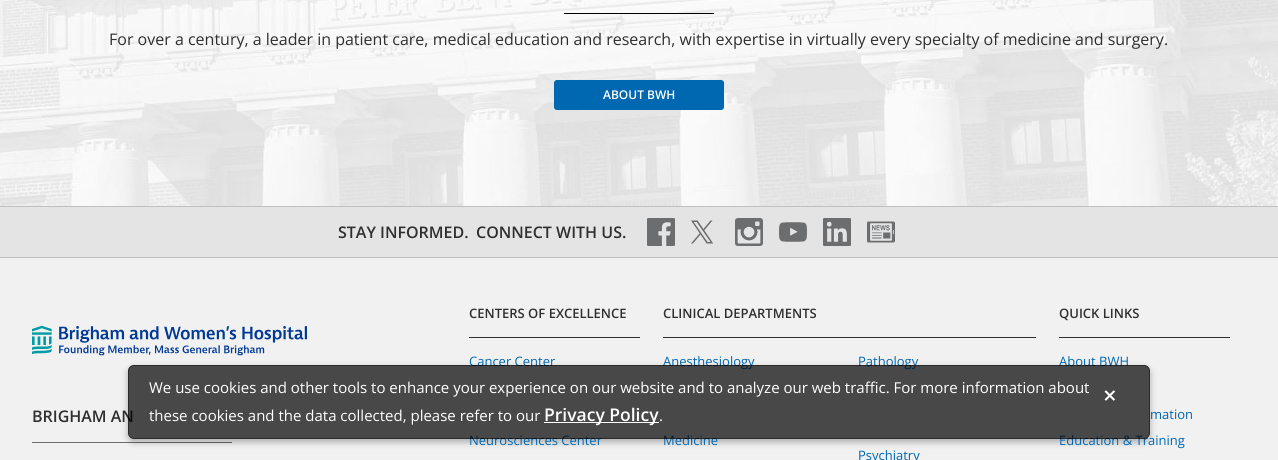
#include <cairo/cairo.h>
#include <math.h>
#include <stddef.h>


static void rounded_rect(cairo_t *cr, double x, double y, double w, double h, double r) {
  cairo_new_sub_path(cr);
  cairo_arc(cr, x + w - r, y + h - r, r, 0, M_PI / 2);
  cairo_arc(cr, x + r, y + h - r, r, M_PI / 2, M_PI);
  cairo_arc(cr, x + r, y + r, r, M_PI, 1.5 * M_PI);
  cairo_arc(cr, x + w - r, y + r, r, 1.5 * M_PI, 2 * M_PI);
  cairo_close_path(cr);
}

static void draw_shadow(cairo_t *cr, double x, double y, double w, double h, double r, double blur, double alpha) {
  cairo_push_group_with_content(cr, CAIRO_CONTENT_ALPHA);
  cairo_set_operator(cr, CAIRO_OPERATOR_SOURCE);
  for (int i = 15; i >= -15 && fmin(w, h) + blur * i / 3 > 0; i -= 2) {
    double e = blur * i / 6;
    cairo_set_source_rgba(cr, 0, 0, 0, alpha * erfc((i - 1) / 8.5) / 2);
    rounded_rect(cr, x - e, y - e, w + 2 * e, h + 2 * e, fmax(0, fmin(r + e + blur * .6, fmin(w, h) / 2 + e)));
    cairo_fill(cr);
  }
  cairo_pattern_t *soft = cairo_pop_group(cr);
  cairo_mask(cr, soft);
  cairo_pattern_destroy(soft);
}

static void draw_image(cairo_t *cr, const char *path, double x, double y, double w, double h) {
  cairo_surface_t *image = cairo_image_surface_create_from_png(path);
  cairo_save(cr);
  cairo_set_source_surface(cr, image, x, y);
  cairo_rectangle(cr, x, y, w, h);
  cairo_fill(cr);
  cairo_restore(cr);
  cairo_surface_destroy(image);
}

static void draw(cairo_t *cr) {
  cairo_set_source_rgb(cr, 241 / 255.0, 241 / 255.0, 241 / 255.0);
  cairo_paint(cr);
  draw_image(cr, "images/1.png", 0, 0, 1278, 206);
  cairo_set_source_rgb(cr, 0, 0, 0);
  cairo_rectangle(cr, 564, 13, 150, 1);
  cairo_fill(cr);
  cairo_set_source_rgb(cr, 0, 103 / 255.0, 177 / 255.0);
  rounded_rect(cr, 554.5, 80.5, 169, 29, 2.5);
  cairo_fill_preserve(cr);
  cairo_set_line_width(cr, 1);
  cairo_stroke(cr);
  cairo_set_source_rgb(cr, 228 / 255.0, 228 / 255.0, 228 / 255.0);
  cairo_rectangle(cr, 0, 207, 1278, 50);
  cairo_fill(cr);
  cairo_set_source_rgb(cr, 192 / 255.0, 192 / 255.0, 192 / 255.0);
  cairo_rectangle(cr, 0, 206, 1278, 1);
  cairo_fill(cr);
  cairo_rectangle(cr, 0, 257, 1278, 1);
  cairo_fill(cr);
  draw_image(cr, "images/2.png", 647, 218, 28, 28);
  draw_image(cr, "images/3.png", 691, 220, 23, 24);
  draw_image(cr, "images/4.png", 735, 218, 28, 28);
  draw_image(cr, "images/5.png", 779, 222, 28, 20);
  draw_image(cr, "images/6.png", 823, 218, 28, 28);
  draw_image(cr, "images/7.png", 867, 221, 28, 22);
  draw_image(cr, "images/8.png", 32, 325, 275, 31);
  cairo_set_source_rgb(cr, 107 / 255.0, 109 / 255.0, 111 / 255.0);
  cairo_rectangle(cr, 32, 442, 200, 1);
  cairo_fill(cr);
  cairo_set_source_rgb(cr, 47 / 255.0, 47 / 255.0, 47 / 255.0);
  cairo_rectangle(cr, 469, 337, 171, 1);
  cairo_fill(cr);
  cairo_rectangle(cr, 663, 337, 373, 1);
  cairo_fill(cr);
  cairo_rectangle(cr, 1059, 337, 171, 1);
  cairo_fill(cr);
  cairo_save(cr);
  cairo_set_fill_rule(cr, CAIRO_FILL_RULE_EVEN_ODD);
  cairo_new_path(cr);
  cairo_move_to(cr, 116, 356);
  cairo_line_to(cr, 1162, 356);
  cairo_line_to(cr, 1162, 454);
  cairo_line_to(cr, 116, 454);
  cairo_close_path(cr);
  cairo_move_to(cr, 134, 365);
  cairo_line_to(cr, 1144, 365);
  cairo_curve_to(cr, 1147.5, 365, 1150, 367.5, 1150, 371);
  cairo_line_to(cr, 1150, 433);
  cairo_curve_to(cr, 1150, 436.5, 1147.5, 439, 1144, 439);
  cairo_line_to(cr, 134, 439);
  cairo_curve_to(cr, 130.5, 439, 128, 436.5, 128, 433);
  cairo_line_to(cr, 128, 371);
  cairo_curve_to(cr, 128, 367.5, 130.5, 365, 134, 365);
  cairo_close_path(cr);
  cairo_clip(cr);
  cairo_set_source_rgb(cr, 0, 0, 0);
  draw_shadow(cr, 128, 368, 1022, 74, 6, 3.5, 0.3);
  cairo_restore(cr);
  cairo_select_font_face(cr, "Open Sans", CAIRO_FONT_SLANT_NORMAL, CAIRO_FONT_WEIGHT_NORMAL);
  cairo_set_font_size(cr, 16);
  cairo_move_to(cr, 109, 45);
  cairo_show_text(cr, "For over a century, a leader in patient care, medical education and research, with expertise in virtually every specialty of medicine and surgery.");
  cairo_select_font_face(cr, "Open Sans SemiBold", CAIRO_FONT_SLANT_NORMAL, CAIRO_FONT_WEIGHT_NORMAL);
  cairo_set_font_size(cr, 12);
  cairo_set_source_rgb(cr, 1, 1, 1);
  cairo_move_to(cr, 603, 99);
  cairo_show_text(cr, "ABOUT BWH");
  cairo_set_font_size(cr, 16);
  cairo_set_source_rgb(cr, 47 / 255.0, 47 / 255.0, 47 / 255.0);
  cairo_move_to(cr, 338, 238);
  cairo_show_text(cr, "STAY INFORMED.");
  cairo_move_to(cr, 476, 238);
  cairo_show_text(cr, "CONNECT WITH US.");
  cairo_move_to(cr, 32, 422);
  cairo_show_text(cr, "BRIGHAM AN");
  cairo_set_font_size(cr, 13);
  cairo_move_to(cr, 469, 318);
  cairo_show_text(cr, "CENTERS OF EXCELLENCE");
  cairo_select_font_face(cr, "Open Sans", CAIRO_FONT_SLANT_NORMAL, CAIRO_FONT_WEIGHT_NORMAL);
  cairo_set_source_rgb(cr, 0, 103 / 255.0, 177 / 255.0);
  cairo_move_to(cr, 469, 366);
  cairo_show_text(cr, "Cancer Center");
  cairo_move_to(cr, 469, 445);
  cairo_show_text(cr, "Neurosciences Center");
  cairo_select_font_face(cr, "Open Sans SemiBold", CAIRO_FONT_SLANT_NORMAL, CAIRO_FONT_WEIGHT_NORMAL);
  cairo_set_source_rgb(cr, 47 / 255.0, 47 / 255.0, 47 / 255.0);
  cairo_move_to(cr, 663, 318);
  cairo_show_text(cr, "CLINICAL DEPARTMENTS");
  cairo_select_font_face(cr, "Open Sans", CAIRO_FONT_SLANT_NORMAL, CAIRO_FONT_WEIGHT_NORMAL);
  cairo_set_source_rgb(cr, 0, 103 / 255.0, 177 / 255.0);
  cairo_move_to(cr, 663, 366);
  cairo_show_text(cr, "Anesthesiology");
  cairo_move_to(cr, 858, 366);
  cairo_show_text(cr, "Pathology");
  cairo_move_to(cr, 663, 445);
  cairo_show_text(cr, "Medicine");
  cairo_move_to(cr, 858, 460);
  cairo_show_text(cr, "Psychiatry");
  cairo_select_font_face(cr, "Open Sans SemiBold", CAIRO_FONT_SLANT_NORMAL, CAIRO_FONT_WEIGHT_NORMAL);
  cairo_set_source_rgb(cr, 47 / 255.0, 47 / 255.0, 47 / 255.0);
  cairo_move_to(cr, 1059, 318);
  cairo_show_text(cr, "QUICK LINKS");
  cairo_select_font_face(cr, "Open Sans", CAIRO_FONT_SLANT_NORMAL, CAIRO_FONT_WEIGHT_NORMAL);
  cairo_set_source_rgb(cr, 0, 103 / 255.0, 177 / 255.0);
  cairo_move_to(cr, 1059, 366);
  cairo_show_text(cr, "About BWH");
  cairo_move_to(cr, 1150, 419);
  cairo_show_text(cr, "mation");
  cairo_move_to(cr, 1059, 445);
  cairo_show_text(cr, "Education & Training");
  cairo_set_source_rgba(cr, 0, 0, 0, 0.7);
  rounded_rect(cr, 128, 365, 1022, 74, 6);
  cairo_fill(cr);
  rounded_rect(cr, 128.5, 365.5, 1021, 73, 5.5);
  cairo_set_source_rgba(cr, 0, 0, 0, 0.4);
  cairo_stroke(cr);
  cairo_set_font_size(cr, 15);
  cairo_set_source_rgb(cr, 1, 1, 1);
  cairo_move_to(cr, 149, 393);
  cairo_show_text(cr, "We use cookies and other tools to enhance your experience on our website and to analyze our web traffic. For more information about");
  cairo_move_to(cr, 149, 421);
  cairo_show_text(cr, "these cookies and the data collected, please refer to our");
  cairo_set_source_rgb(cr, 254 / 255.0, 254 / 255.0, 254 / 255.0);
  cairo_rectangle(cr, 544, 422, 115, 1);
  cairo_fill(cr);
  cairo_select_font_face(cr, "Open Sans SemiBold", CAIRO_FONT_SLANT_NORMAL, CAIRO_FONT_WEIGHT_NORMAL);
  cairo_set_font_size(cr, 17.5);
  cairo_set_source_rgb(cr, 1, 1, 1);
  cairo_move_to(cr, 544, 421);
  cairo_show_text(cr, "Privacy Policy");
  cairo_select_font_face(cr, "Open Sans", CAIRO_FONT_SLANT_NORMAL, CAIRO_FONT_WEIGHT_NORMAL);
  cairo_set_font_size(cr, 15);
  cairo_move_to(cr, 659, 421);
  cairo_show_text(cr, ".");
  cairo_select_font_face(cr, "Open Sans SemiBold", CAIRO_FONT_SLANT_NORMAL, CAIRO_FONT_WEIGHT_NORMAL);
  cairo_set_font_size(cr, 24);
  cairo_move_to(cr, 1103, 404);
  cairo_show_text(cr, "×");
}

int main(void) {
  cairo_surface_t *surface = cairo_image_surface_create(CAIRO_FORMAT_RGB24, 1278, 460);
  cairo_t *cr = cairo_create(surface);
  cairo_font_options_t *options = cairo_font_options_create();
  cairo_font_options_set_hint_metrics(options, CAIRO_HINT_METRICS_OFF);
  cairo_font_options_set_hint_style(options, CAIRO_HINT_STYLE_NONE);
  cairo_set_font_options(cr, options);
  cairo_set_miter_limit(cr, 4);
  draw(cr);
  cairo_surface_write_to_png(surface, "out.png");
  cairo_font_options_destroy(options);
  cairo_destroy(cr);
  cairo_surface_destroy(surface);
  return 0;
}
